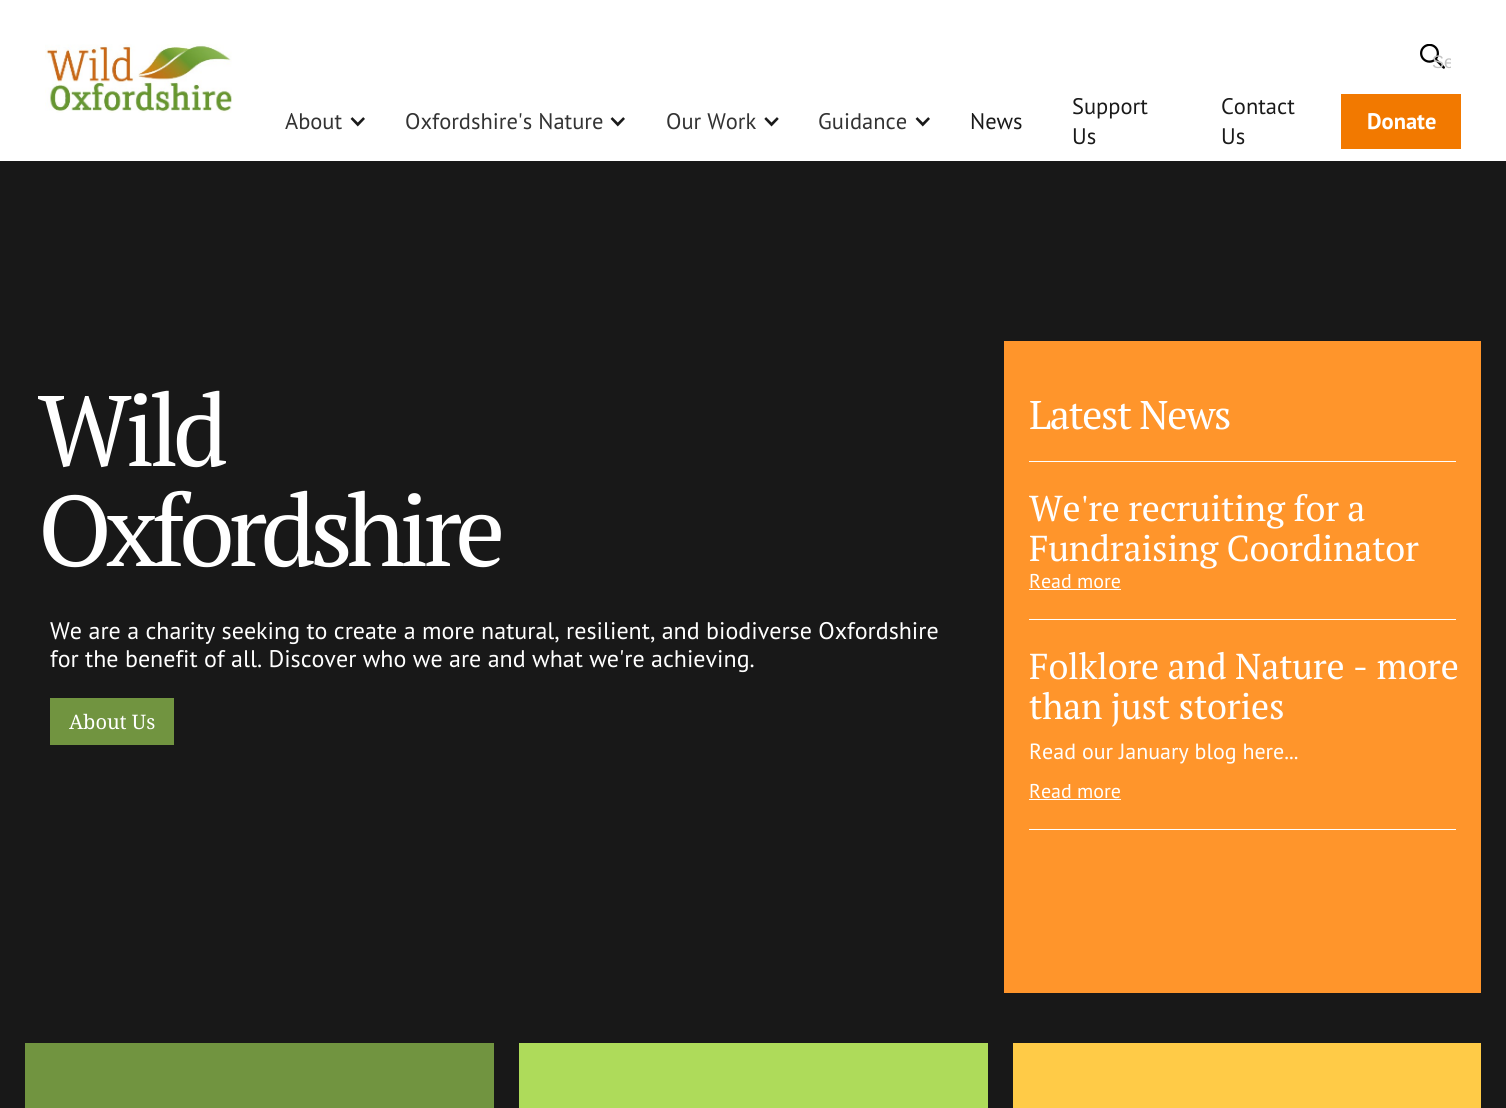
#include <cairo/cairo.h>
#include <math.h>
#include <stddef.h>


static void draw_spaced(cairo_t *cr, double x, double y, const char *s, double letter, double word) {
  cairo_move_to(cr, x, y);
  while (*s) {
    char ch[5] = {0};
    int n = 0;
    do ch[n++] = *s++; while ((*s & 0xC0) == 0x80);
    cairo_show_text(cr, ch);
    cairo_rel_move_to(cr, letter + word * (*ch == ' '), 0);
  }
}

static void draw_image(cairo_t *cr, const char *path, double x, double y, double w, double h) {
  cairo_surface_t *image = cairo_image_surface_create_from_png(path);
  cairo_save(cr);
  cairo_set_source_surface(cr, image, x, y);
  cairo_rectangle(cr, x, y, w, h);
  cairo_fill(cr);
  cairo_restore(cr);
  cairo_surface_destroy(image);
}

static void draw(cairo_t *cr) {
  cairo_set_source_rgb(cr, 1, 1, 1);
  cairo_paint(cr);
  draw_image(cr, "images/1.png", 45, 44, 187, 69);
  draw_image(cr, "images/2.png", 1420, 44, 25, 25);
  draw_image(cr, "images/3.png", 350, 117, 15, 10);
  draw_image(cr, "images/3.png", 610, 117, 15, 10);
  draw_image(cr, "images/4.png", 764, 117, 15, 10);
  draw_image(cr, "images/3.png", 915, 117, 15, 10);
  cairo_set_source_rgb(cr, 242 / 255.0, 121 / 255.0, 0);
  cairo_rectangle(cr, 1341, 94, 120, 55);
  cairo_fill(cr);
  cairo_set_source_rgb(cr, 24 / 255.0, 24 / 255.0, 24 / 255.0);
  cairo_rectangle(cr, 0, 161, 1506, 947);
  cairo_fill(cr);
  cairo_set_source_rgb(cr, 113 / 255.0, 148 / 255.0, 64 / 255.0);
  cairo_rectangle(cr, 50, 698, 124, 47);
  cairo_fill(cr);
  cairo_set_source_rgb(cr, 1, 149 / 255.0, 43 / 255.0);
  cairo_rectangle(cr, 1004, 341, 477, 652);
  cairo_fill(cr);
  cairo_set_source_rgb(cr, 1, 1, 1);
  cairo_rectangle(cr, 1029, 461, 427, 1);
  cairo_fill(cr);
  cairo_rectangle(cr, 1029, 589, 92, 1);
  cairo_fill(cr);
  cairo_rectangle(cr, 1029, 619, 427, 1);
  cairo_fill(cr);
  cairo_rectangle(cr, 1029, 799, 92, 1);
  cairo_fill(cr);
  cairo_rectangle(cr, 1029, 829, 427, 1);
  cairo_fill(cr);
  cairo_set_source_rgb(cr, 113 / 255.0, 148 / 255.0, 64 / 255.0);
  cairo_rectangle(cr, 25, 1043, 469, 65);
  cairo_fill(cr);
  cairo_set_source_rgb(cr, 174 / 255.0, 219 / 255.0, 90 / 255.0);
  cairo_rectangle(cr, 519, 1043, 469, 65);
  cairo_fill(cr);
  cairo_set_source_rgb(cr, 1, 203 / 255.0, 71 / 255.0);
  cairo_rectangle(cr, 1013, 1043, 468, 65);
  cairo_fill(cr);
  cairo_save(cr);
  cairo_rectangle(cr, 1414, 38, 37, 37);
  cairo_clip(cr);
  cairo_select_font_face(cr, "Liberation Sans", CAIRO_FONT_SLANT_NORMAL, CAIRO_FONT_WEIGHT_NORMAL);
  cairo_set_font_size(cr, 18);
  cairo_set_source_rgb(cr, 194 / 255.0, 194 / 255.0, 194 / 255.0);
  cairo_move_to(cr, 1432, 68);
  cairo_show_text(cr, "Se");
  cairo_restore(cr);
  cairo_select_font_face(cr, "PT Sans", CAIRO_FONT_SLANT_NORMAL, CAIRO_FONT_WEIGHT_NORMAL);
  cairo_set_font_size(cr, 22.5);
  cairo_set_source_rgb(cr, 51 / 255.0, 51 / 255.0, 51 / 255.0);
  cairo_move_to(cr, 285, 129);
  cairo_show_text(cr, "About");
  cairo_move_to(cr, 405, 129);
  cairo_show_text(cr, "Oxfordshire's Nature");
  cairo_move_to(cr, 666, 129);
  cairo_show_text(cr, "Our Work");
  cairo_move_to(cr, 818, 129);
  cairo_show_text(cr, "Guidance");
  cairo_set_source_rgb(cr, 26 / 255.0, 26 / 255.0, 26 / 255.0);
  cairo_move_to(cr, 970, 129);
  cairo_show_text(cr, "News");
  cairo_move_to(cr, 1072, 114);
  cairo_show_text(cr, "Support");
  cairo_move_to(cr, 1072, 144);
  cairo_show_text(cr, "Us");
  cairo_move_to(cr, 1221, 114);
  cairo_show_text(cr, "Contact");
  cairo_move_to(cr, 1221, 144);
  cairo_show_text(cr, "Us");
  cairo_select_font_face(cr, "PT Sans", CAIRO_FONT_SLANT_NORMAL, CAIRO_FONT_WEIGHT_BOLD);
  cairo_set_source_rgb(cr, 1, 1, 1);
  cairo_move_to(cr, 1367, 129);
  cairo_show_text(cr, "Donate");
  cairo_select_font_face(cr, "PT Serif", CAIRO_FONT_SLANT_NORMAL, CAIRO_FONT_WEIGHT_NORMAL);
  cairo_set_font_size(cr, 100);
  draw_spaced(cr, 38, 466, "Wild", -6.25, 0);
  draw_spaced(cr, 38, 566, "Oxfordshire", -6.25, 0);
  cairo_select_font_face(cr, "PT Sans", CAIRO_FONT_SLANT_NORMAL, CAIRO_FONT_WEIGHT_NORMAL);
  cairo_set_font_size(cr, 24);
  cairo_move_to(cr, 50, 639);
  cairo_show_text(cr, "We are a charity seeking to create a more natural, resilient, and biodiverse Oxfordshire");
  cairo_move_to(cr, 50, 667);
  cairo_show_text(cr, "for the benefit of all. Discover who we are and what we're achieving.");
  cairo_select_font_face(cr, "Noto Serif", CAIRO_FONT_SLANT_NORMAL, CAIRO_FONT_WEIGHT_NORMAL);
  cairo_set_font_size(cr, 20);
  cairo_move_to(cr, 69, 729);
  cairo_show_text(cr, "About Us");
  cairo_select_font_face(cr, "PT Serif", CAIRO_FONT_SLANT_NORMAL, CAIRO_FONT_WEIGHT_NORMAL);
  cairo_set_font_size(cr, 40);
  draw_spaced(cr, 1029, 429, "Latest News", -1.25, 0);
  cairo_set_font_size(cr, 36);
  draw_spaced(cr, 1029, 521, "We're recruiting for a", -0.2, 0);
  draw_spaced(cr, 1029, 561, "Fundraising Coordinator", -0.2, 0);
  cairo_select_font_face(cr, "PT Sans", CAIRO_FONT_SLANT_NORMAL, CAIRO_FONT_WEIGHT_NORMAL);
  cairo_set_font_size(cr, 20);
  cairo_move_to(cr, 1029, 588);
  cairo_show_text(cr, "Read more");
  cairo_select_font_face(cr, "PT Serif", CAIRO_FONT_SLANT_NORMAL, CAIRO_FONT_WEIGHT_NORMAL);
  cairo_set_font_size(cr, 36);
  draw_spaced(cr, 1029, 679, "Folklore and Nature - more", -0.2, 0);
  draw_spaced(cr, 1029, 719, "than just stories", -0.2, 0);
  cairo_select_font_face(cr, "PT Sans", CAIRO_FONT_SLANT_NORMAL, CAIRO_FONT_WEIGHT_NORMAL);
  cairo_set_font_size(cr, 22);
  cairo_move_to(cr, 1029, 759);
  cairo_show_text(cr, "Read our January blog here...");
  cairo_set_font_size(cr, 20);
  cairo_move_to(cr, 1029, 798);
  cairo_show_text(cr, "Read more");
}

int main(void) {
  cairo_surface_t *surface = cairo_image_surface_create(CAIRO_FORMAT_RGB24, 1506, 1108);
  cairo_t *cr = cairo_create(surface);
  cairo_font_options_t *options = cairo_font_options_create();
  cairo_font_options_set_hint_metrics(options, CAIRO_HINT_METRICS_OFF);
  cairo_font_options_set_hint_style(options, CAIRO_HINT_STYLE_NONE);
  cairo_set_font_options(cr, options);
  cairo_set_miter_limit(cr, 4);
  draw(cr);
  cairo_surface_write_to_png(surface, "out.png");
  cairo_font_options_destroy(options);
  cairo_destroy(cr);
  cairo_surface_destroy(surface);
  return 0;
}
